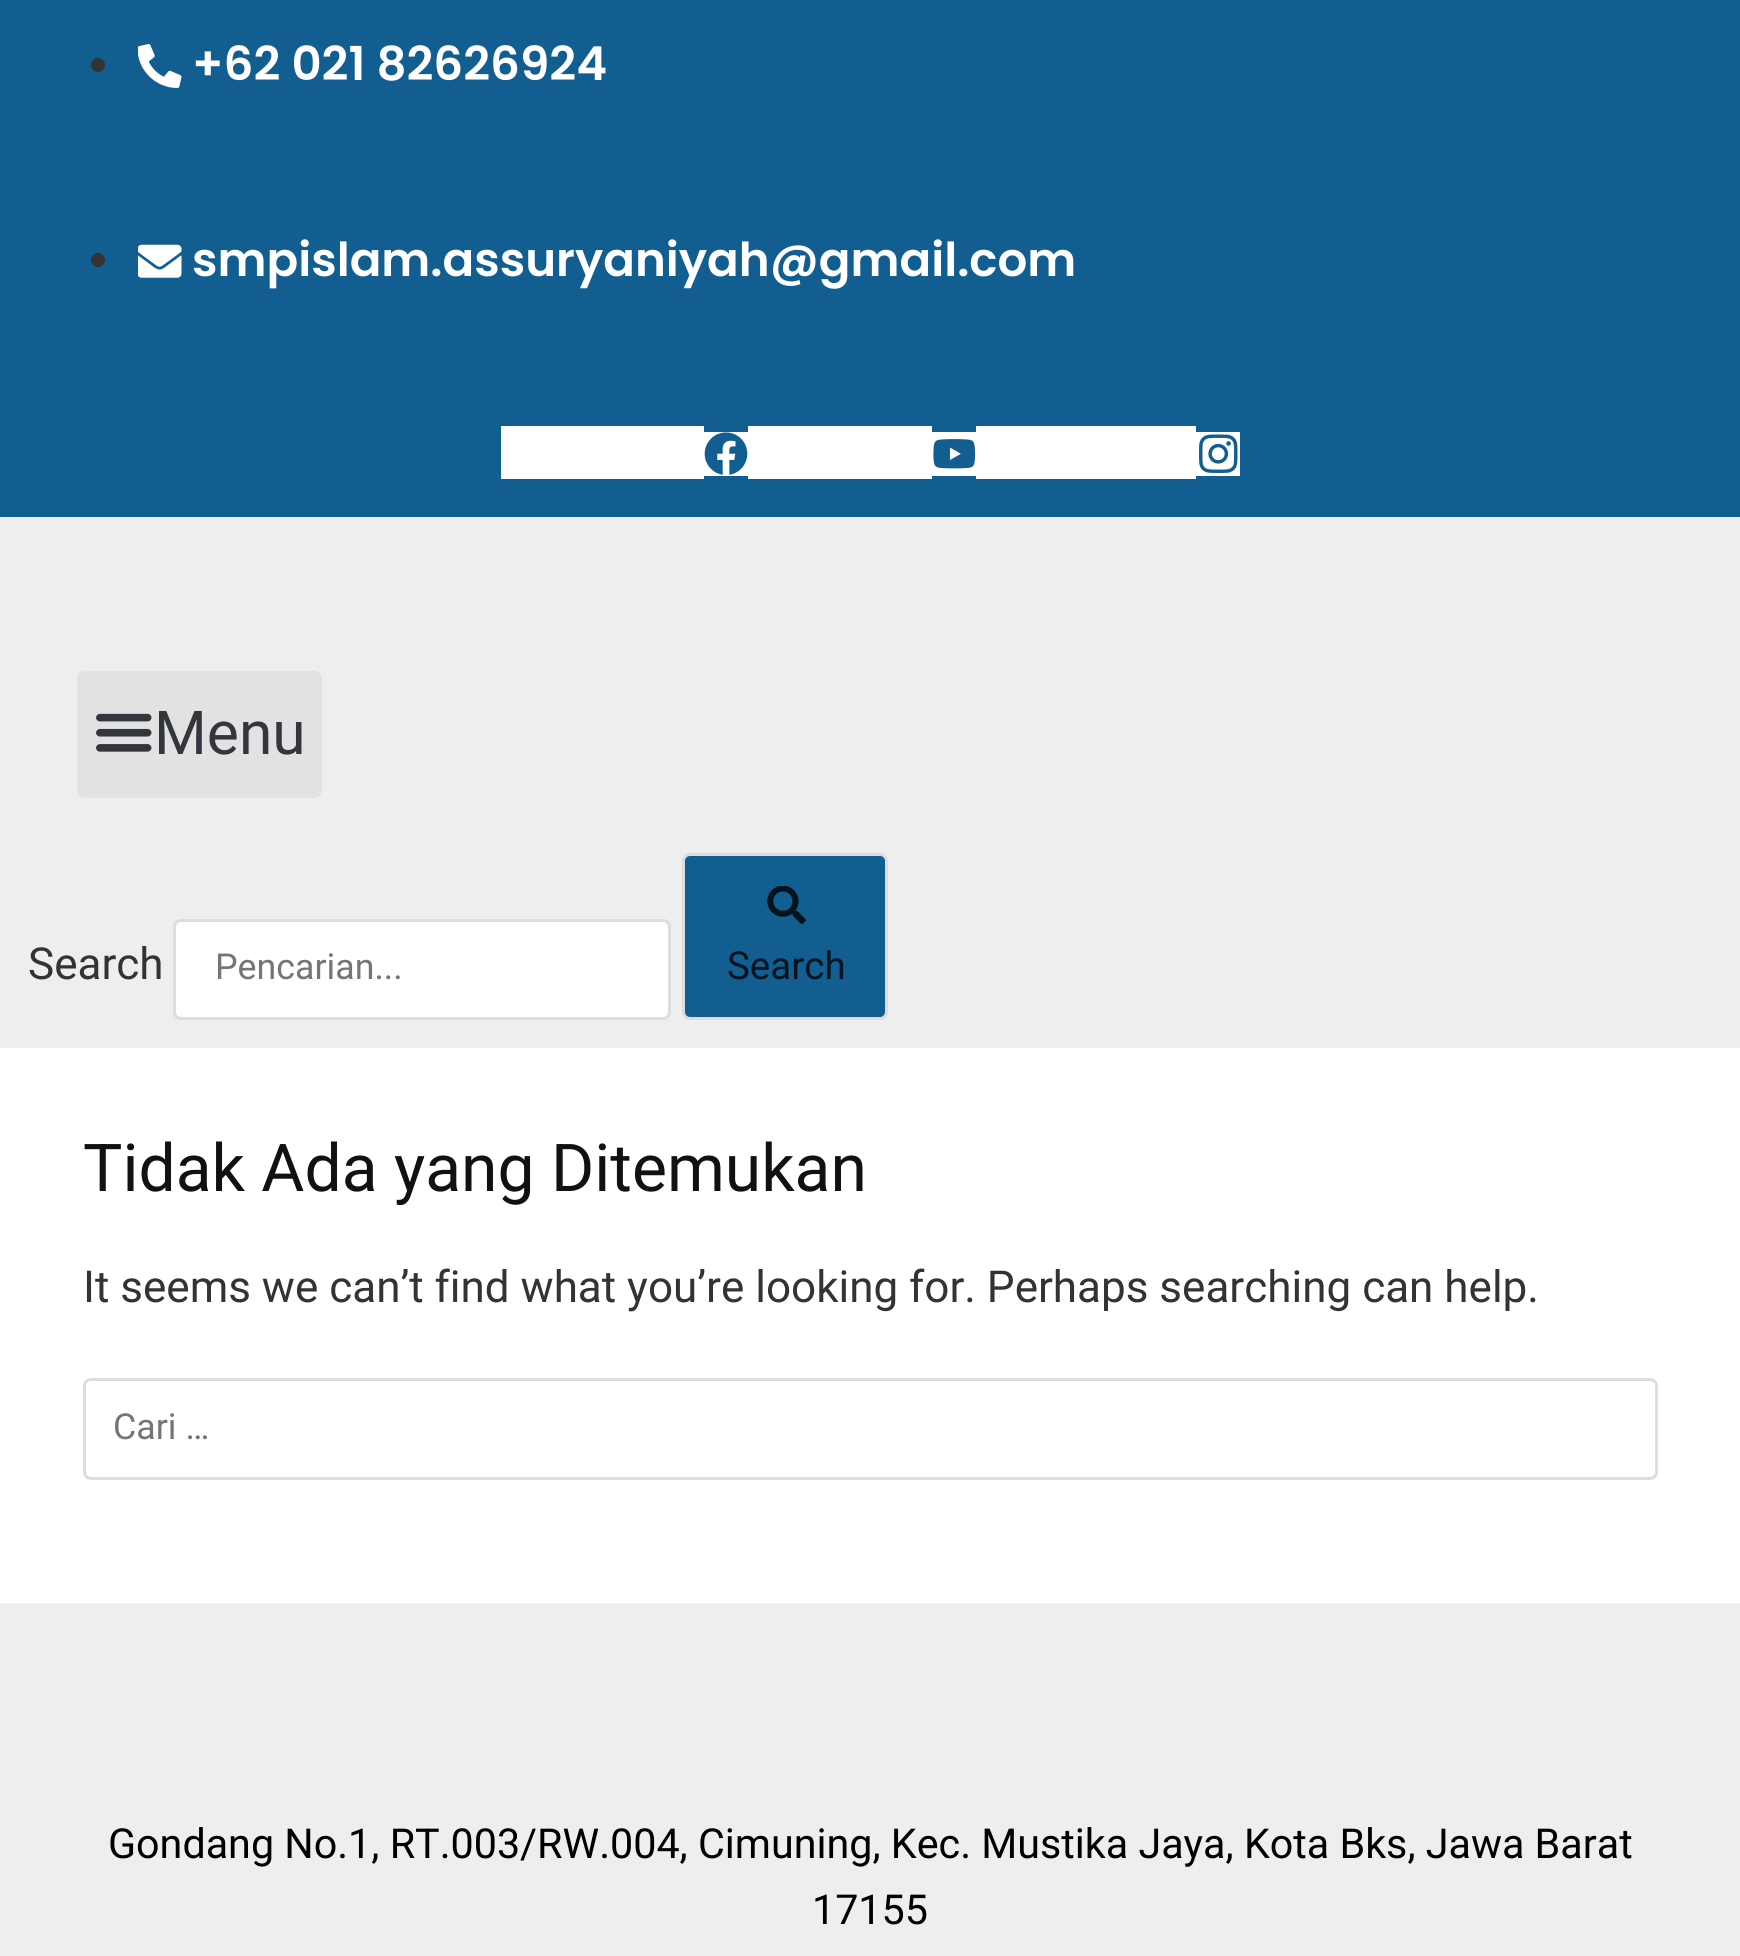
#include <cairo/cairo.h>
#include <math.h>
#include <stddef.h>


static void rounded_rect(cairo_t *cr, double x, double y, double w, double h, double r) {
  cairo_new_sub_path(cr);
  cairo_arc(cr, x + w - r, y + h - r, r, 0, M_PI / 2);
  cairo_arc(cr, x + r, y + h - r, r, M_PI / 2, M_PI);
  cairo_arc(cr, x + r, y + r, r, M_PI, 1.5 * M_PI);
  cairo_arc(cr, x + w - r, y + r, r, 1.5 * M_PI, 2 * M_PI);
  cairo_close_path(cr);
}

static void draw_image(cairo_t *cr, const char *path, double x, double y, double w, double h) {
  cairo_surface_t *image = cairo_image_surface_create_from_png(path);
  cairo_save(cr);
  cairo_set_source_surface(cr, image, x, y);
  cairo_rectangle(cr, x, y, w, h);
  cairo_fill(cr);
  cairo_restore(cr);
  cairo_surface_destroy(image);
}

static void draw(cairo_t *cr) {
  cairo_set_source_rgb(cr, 238 / 255.0, 238 / 255.0, 238 / 255.0);
  cairo_paint(cr);
  cairo_set_source_rgb(cr, 19 / 255.0, 94 / 255.0, 145 / 255.0);
  cairo_rectangle(cr, 0, 0, 1740, 517);
  cairo_fill(cr);
  cairo_set_source_rgb(cr, 51 / 255.0, 51 / 255.0, 51 / 255.0);
  cairo_arc(cr, 98, 65, 7, 0, 2 * M_PI);
  cairo_fill(cr);
  draw_image(cr, "images/1.png", 138, 44, 44, 44);
  cairo_arc(cr, 98, 260, 7, 0, 2 * M_PI);
  cairo_fill(cr);
  draw_image(cr, "images/2.png", 138, 244, 44, 34);
  cairo_set_source_rgb(cr, 1, 1, 1);
  cairo_rectangle(cr, 501, 426, 203, 53);
  cairo_fill(cr);
  cairo_rectangle(cr, 704, 432, 44, 44);
  cairo_fill(cr);
  cairo_rectangle(cr, 748, 426, 184, 53);
  cairo_fill(cr);
  draw_image(cr, "images/3.png", 704, 432, 44, 43);
  cairo_rectangle(cr, 932, 432, 44, 44);
  cairo_fill(cr);
  cairo_rectangle(cr, 976, 426, 220, 53);
  cairo_fill(cr);
  draw_image(cr, "images/4.png", 933, 439, 43, 30);
  cairo_rectangle(cr, 1196, 432, 44, 44);
  cairo_fill(cr);
  draw_image(cr, "images/5.png", 1199, 434, 39, 39);
  cairo_set_source_rgb(cr, 226 / 255.0, 226 / 255.0, 226 / 255.0);
  rounded_rect(cr, 77, 671, 245, 127, 8);
  cairo_fill(cr);
  draw_image(cr, "images/6.png", 96, 713, 56, 39);
  cairo_set_source_rgb(cr, 1, 1, 1);
  rounded_rect(cr, 174.5, 920.5, 495, 98, 6.5);
  cairo_fill_preserve(cr);
  cairo_set_source_rgb(cr, 221 / 255.0, 221 / 255.0, 221 / 255.0);
  cairo_set_line_width(cr, 3);
  cairo_stroke(cr);
  cairo_set_source_rgb(cr, 19 / 255.0, 94 / 255.0, 145 / 255.0);
  rounded_rect(cr, 683.5, 854.5, 203, 164, 6.5);
  cairo_fill_preserve(cr);
  cairo_set_source_rgb(cr, 221 / 255.0, 221 / 255.0, 221 / 255.0);
  cairo_stroke(cr);
  draw_image(cr, "images/7.png", 767, 886, 39, 38);
  cairo_set_source_rgb(cr, 1, 1, 1);
  cairo_rectangle(cr, 0, 1048, 1740, 555);
  cairo_fill(cr);
  rounded_rect(cr, 84.5, 1379.5, 1572, 99, 6.5);
  cairo_set_source_rgb(cr, 221 / 255.0, 221 / 255.0, 221 / 255.0);
  cairo_stroke(cr);
  cairo_select_font_face(cr, "Poppins SemiBold", CAIRO_FONT_SLANT_NORMAL, CAIRO_FONT_WEIGHT_NORMAL);
  cairo_set_font_size(cr, 46.75);
  cairo_set_source_rgb(cr, 1, 1, 1);
  cairo_move_to(cr, 192, 80);
  cairo_show_text(cr, "+62 021 82626924");
  cairo_move_to(cr, 192, 276);
  cairo_show_text(cr, "smpislam.assuryaniyah@gmail.com");
  cairo_select_font_face(cr, "Roboto", CAIRO_FONT_SLANT_NORMAL, CAIRO_FONT_WEIGHT_NORMAL);
  cairo_set_font_size(cr, 60.5);
  cairo_set_source_rgb(cr, 51 / 255.0, 55 / 255.0, 61 / 255.0);
  cairo_move_to(cr, 154, 754);
  cairo_show_text(cr, "Menu");
  cairo_set_font_size(cr, 44);
  cairo_set_source_rgb(cr, 51 / 255.0, 51 / 255.0, 51 / 255.0);
  cairo_move_to(cr, 28, 979);
  cairo_show_text(cr, "Search");
  cairo_set_font_size(cr, 35.75);
  cairo_set_source_rgb(cr, 117 / 255.0, 117 / 255.0, 117 / 255.0);
  cairo_move_to(cr, 215, 979);
  cairo_show_text(cr, "Pencarian...");
  cairo_set_font_size(cr, 38.5);
  cairo_set_source_rgb(cr, 4 / 255.0, 19 / 255.0, 29 / 255.0);
  cairo_move_to(cr, 727, 979);
  cairo_show_text(cr, "Search");
  cairo_set_font_size(cr, 66);
  cairo_set_source_rgb(cr, 17 / 255.0, 17 / 255.0, 17 / 255.0);
  cairo_move_to(cr, 83, 1191);
  cairo_show_text(cr, "Tidak Ada yang Ditemukan");
  cairo_set_font_size(cr, 44);
  cairo_set_source_rgb(cr, 51 / 255.0, 51 / 255.0, 51 / 255.0);
  cairo_move_to(cr, 83, 1302);
  cairo_show_text(cr, "It seems we can’t find what you’re looking for. Perhaps searching can help.");
  cairo_set_font_size(cr, 35.75);
  cairo_set_source_rgb(cr, 117 / 255.0, 117 / 255.0, 117 / 255.0);
  cairo_move_to(cr, 113, 1439);
  cairo_show_text(cr, "Cari …");
  cairo_set_font_size(cr, 41.25);
  cairo_set_source_rgb(cr, 0, 0, 0);
  cairo_move_to(cr, 108, 1858);
  cairo_show_text(cr, "Gondang No.1, RT.003/RW.004, Cimuning, Kec. Mustika Jaya, Kota Bks, Jawa Barat");
  cairo_move_to(cr, 812, 1924);
  cairo_show_text(cr, "17155");
}

int main(void) {
  cairo_surface_t *surface = cairo_image_surface_create(CAIRO_FORMAT_RGB24, 1740, 1956);
  cairo_t *cr = cairo_create(surface);
  cairo_font_options_t *options = cairo_font_options_create();
  cairo_font_options_set_hint_metrics(options, CAIRO_HINT_METRICS_OFF);
  cairo_font_options_set_hint_style(options, CAIRO_HINT_STYLE_NONE);
  cairo_set_font_options(cr, options);
  cairo_set_miter_limit(cr, 4);
  draw(cr);
  cairo_surface_write_to_png(surface, "out.png");
  cairo_font_options_destroy(options);
  cairo_destroy(cr);
  cairo_surface_destroy(surface);
  return 0;
}
